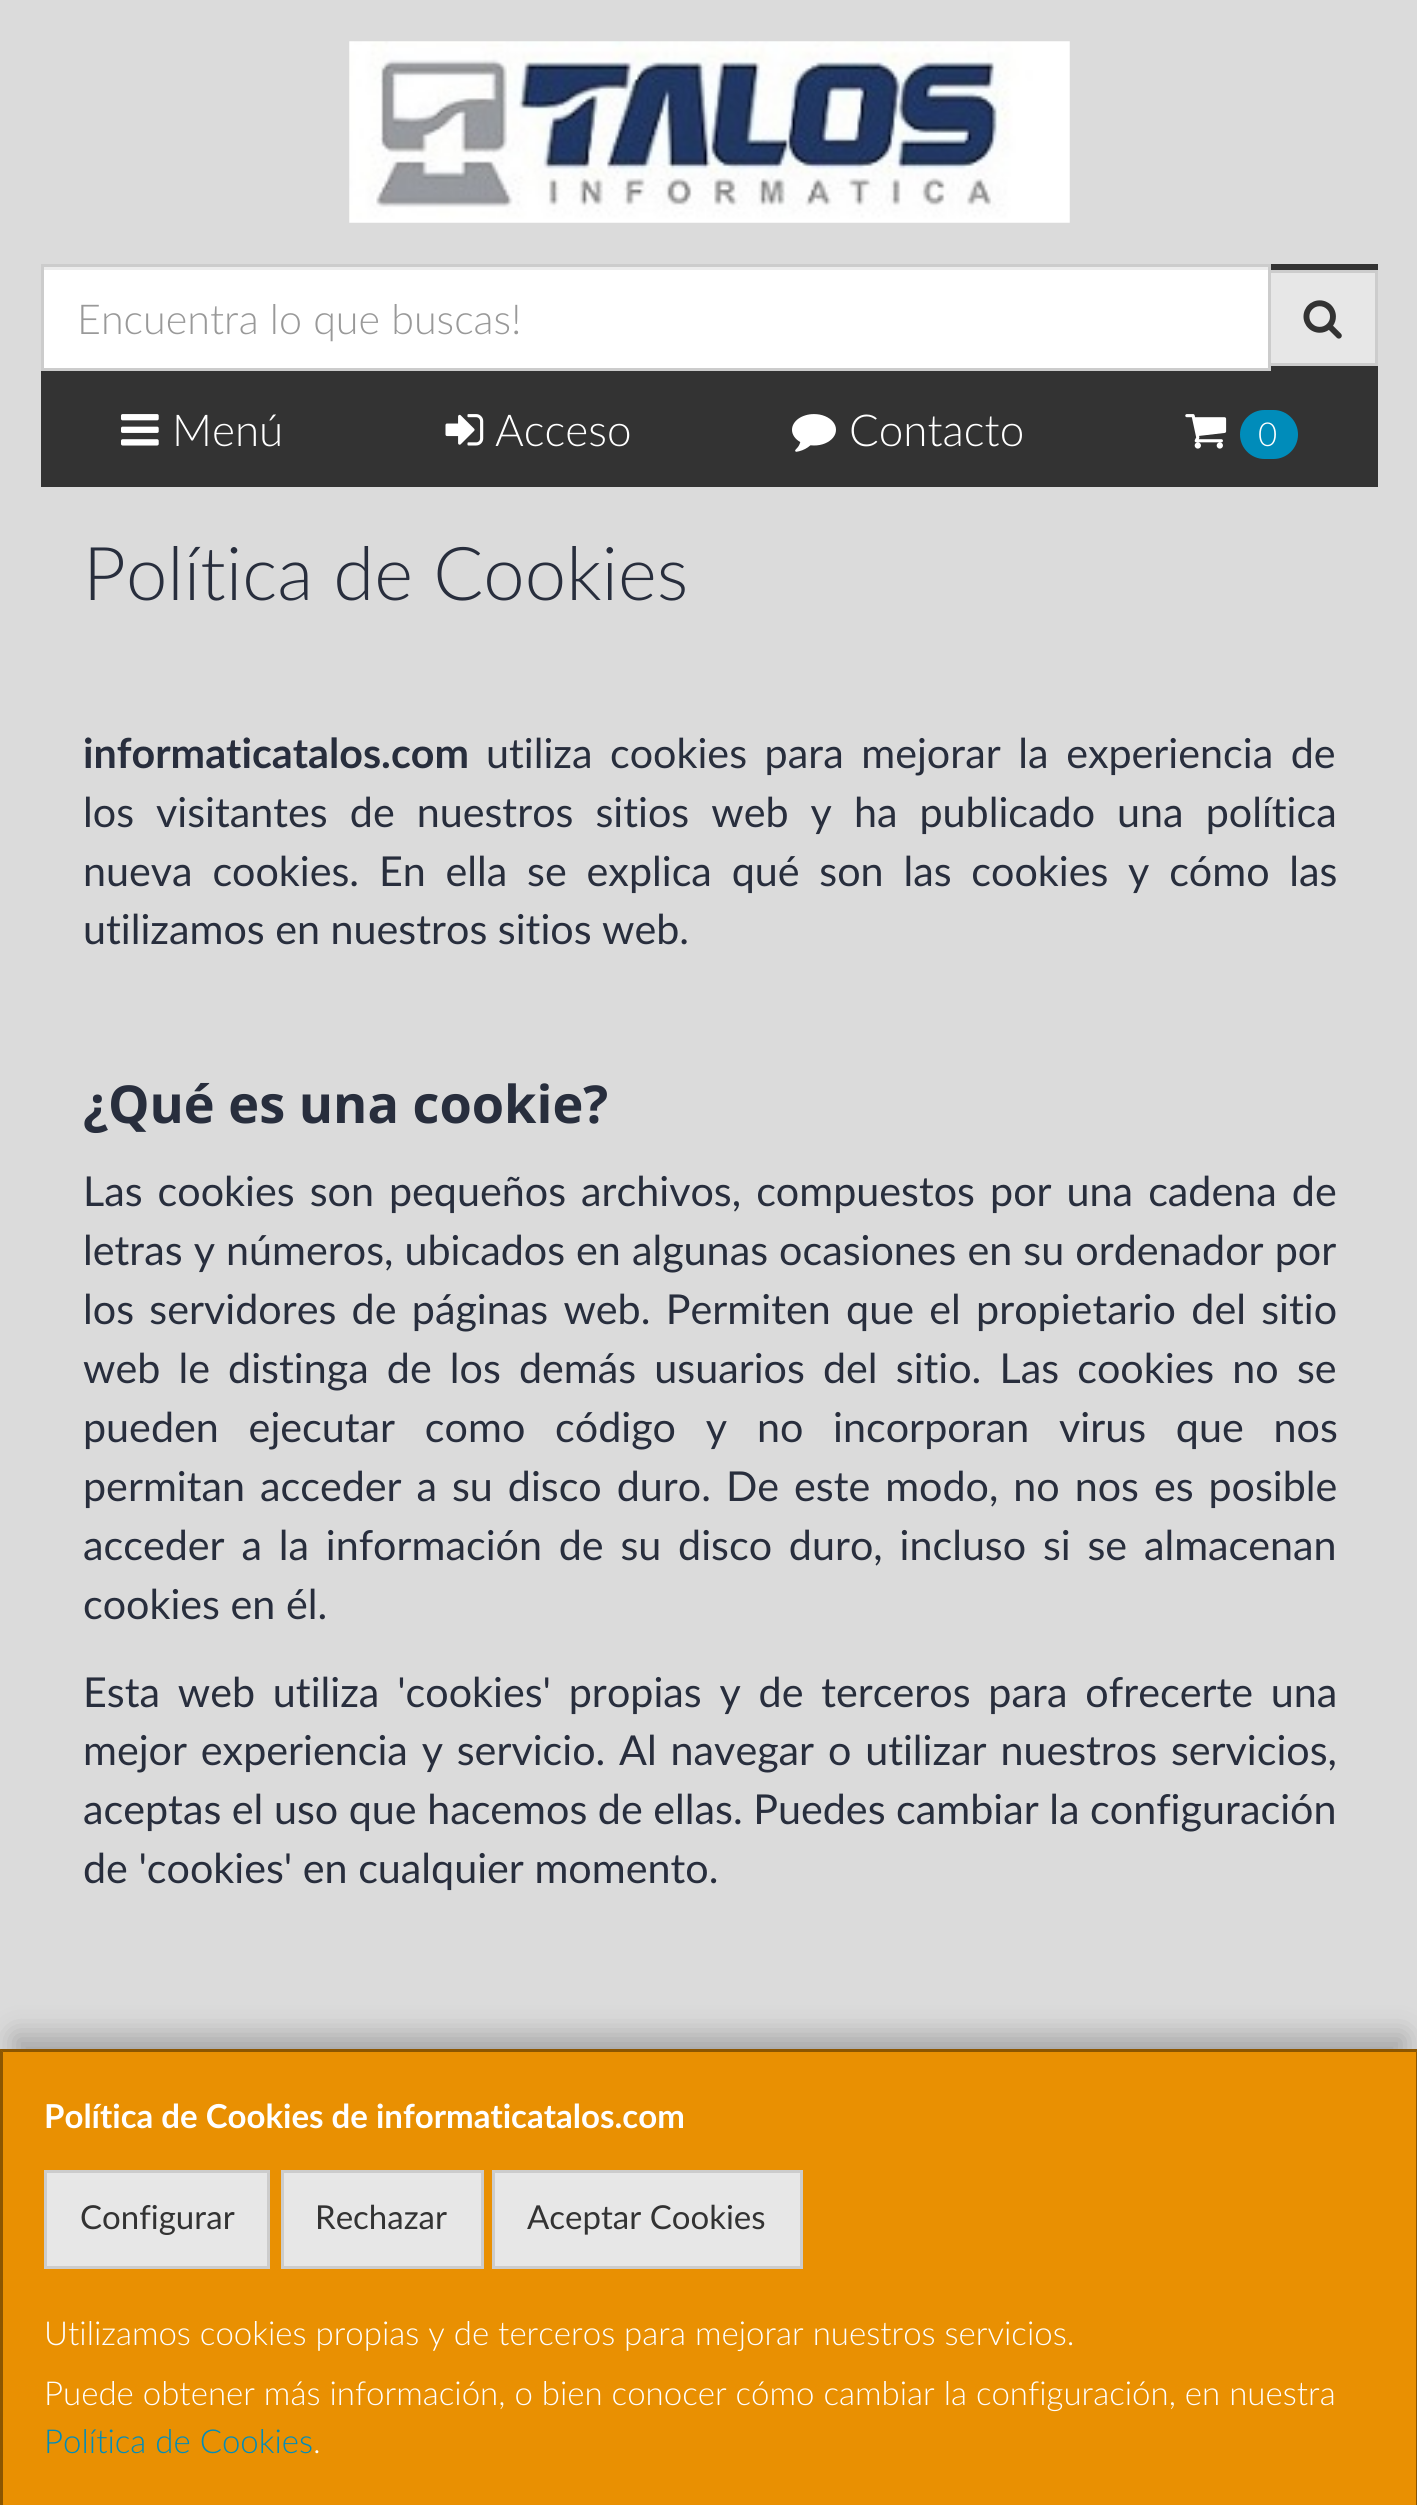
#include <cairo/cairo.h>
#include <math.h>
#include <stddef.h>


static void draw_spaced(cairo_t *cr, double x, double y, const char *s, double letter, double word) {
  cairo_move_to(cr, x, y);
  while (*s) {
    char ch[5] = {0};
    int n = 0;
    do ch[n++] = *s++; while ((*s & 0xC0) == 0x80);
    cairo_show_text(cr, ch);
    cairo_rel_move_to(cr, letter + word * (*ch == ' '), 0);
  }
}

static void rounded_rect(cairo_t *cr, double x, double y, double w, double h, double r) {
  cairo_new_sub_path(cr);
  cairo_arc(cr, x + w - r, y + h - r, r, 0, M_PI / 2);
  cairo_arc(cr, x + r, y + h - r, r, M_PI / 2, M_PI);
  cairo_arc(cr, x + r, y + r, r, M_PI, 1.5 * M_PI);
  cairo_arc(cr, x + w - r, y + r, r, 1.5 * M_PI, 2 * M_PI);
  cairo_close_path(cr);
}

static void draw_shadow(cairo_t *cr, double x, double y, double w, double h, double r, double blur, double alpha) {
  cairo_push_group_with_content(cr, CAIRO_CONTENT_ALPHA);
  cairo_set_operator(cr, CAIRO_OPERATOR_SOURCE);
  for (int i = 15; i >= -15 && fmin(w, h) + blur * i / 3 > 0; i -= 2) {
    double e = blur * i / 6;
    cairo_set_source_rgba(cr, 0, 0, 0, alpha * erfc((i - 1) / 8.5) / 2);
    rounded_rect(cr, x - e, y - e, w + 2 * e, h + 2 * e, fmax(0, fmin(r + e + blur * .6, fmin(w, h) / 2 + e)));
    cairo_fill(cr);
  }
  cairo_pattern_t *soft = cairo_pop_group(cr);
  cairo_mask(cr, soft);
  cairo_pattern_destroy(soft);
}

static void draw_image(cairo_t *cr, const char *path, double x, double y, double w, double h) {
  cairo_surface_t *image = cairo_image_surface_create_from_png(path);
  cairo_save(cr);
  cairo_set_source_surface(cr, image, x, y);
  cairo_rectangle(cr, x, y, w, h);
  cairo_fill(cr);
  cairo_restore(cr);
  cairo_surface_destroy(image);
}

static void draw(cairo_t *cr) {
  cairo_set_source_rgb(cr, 219 / 255.0, 219 / 255.0, 219 / 255.0);
  cairo_paint(cr);
  draw_image(cr, "images/1.png", 349, 41, 721, 182);
  cairo_set_source_rgb(cr, 51 / 255.0, 51 / 255.0, 51 / 255.0);
  cairo_rectangle(cr, 41, 264, 1337, 223);
  cairo_fill(cr);
  cairo_set_source_rgb(cr, 1, 1, 1);
  cairo_rectangle(cr, 44, 270, 1224, 98);
  cairo_fill(cr);
  cairo_set_source_rgb(cr, 236 / 255.0, 236 / 255.0, 236 / 255.0);
  cairo_rectangle(cr, 44, 267, 1224, 3);
  cairo_fill(cr);
  cairo_set_source_rgb(cr, 231 / 255.0, 231 / 255.0, 231 / 255.0);
  cairo_rectangle(cr, 1269.5, 271.5, 107, 93);
  cairo_fill_preserve(cr);
  cairo_set_source_rgb(cr, 204 / 255.0, 204 / 255.0, 204 / 255.0);
  cairo_set_line_width(cr, 3);
  cairo_stroke(cr);
  cairo_rectangle(cr, 42.5, 265.5, 1227, 104);
  cairo_stroke(cr);
  draw_image(cr, "images/2.png", 1303, 300, 39, 39);
  draw_image(cr, "images/3.png", 121, 414, 38, 32);
  draw_image(cr, "images/4.png", 445, 414, 39, 32);
  draw_image(cr, "images/5.png", 792, 414, 44, 38);
  draw_image(cr, "images/6.png", 1185, 414, 42, 35);
  cairo_set_source_rgb(cr, 0, 140 / 255.0, 186 / 255.0);
  rounded_rect(cr, 1240, 410, 58, 49, 24.5);
  cairo_fill(cr);
  cairo_set_source_rgb(cr, 0, 0, 0);
  draw_shadow(cr, 14, 2035, 1391, 429, 0, 14, 0.25);
  cairo_set_source_rgb(cr, 233 / 255.0, 144 / 255.0, 2 / 255.0);
  cairo_rectangle(cr, 0, 2049, 1417, 456);
  cairo_fill(cr);
  cairo_set_source_rgb(cr, 140 / 255.0, 86 / 255.0, 1 / 255.0);
  cairo_new_path(cr);
  cairo_move_to(cr, 0, 2049);
  cairo_line_to(cr, 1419, 2049);
  cairo_line_to(cr, 1416, 2052);
  cairo_line_to(cr, 3, 2052);
  cairo_close_path(cr);
  cairo_fill(cr);
  cairo_set_source_rgba(cr, 0, 0, 0, 0.4);
  cairo_new_path(cr);
  cairo_move_to(cr, 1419, 2049);
  cairo_line_to(cr, 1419, 2505);
  cairo_line_to(cr, 1416, 2505);
  cairo_line_to(cr, 1416, 2052);
  cairo_close_path(cr);
  cairo_fill(cr);
  cairo_new_path(cr);
  cairo_move_to(cr, 0, 2505);
  cairo_line_to(cr, 0, 2049);
  cairo_line_to(cr, 3, 2052);
  cairo_line_to(cr, 3, 2505);
  cairo_close_path(cr);
  cairo_fill(cr);
  cairo_set_source_rgb(cr, 231 / 255.0, 231 / 255.0, 231 / 255.0);
  cairo_rectangle(cr, 45.5, 2171.5, 223, 96);
  cairo_fill_preserve(cr);
  cairo_set_source_rgb(cr, 204 / 255.0, 204 / 255.0, 204 / 255.0);
  cairo_stroke(cr);
  cairo_set_source_rgb(cr, 231 / 255.0, 231 / 255.0, 231 / 255.0);
  cairo_rectangle(cr, 282.5, 2171.5, 200, 96);
  cairo_fill_preserve(cr);
  cairo_set_source_rgb(cr, 204 / 255.0, 204 / 255.0, 204 / 255.0);
  cairo_stroke(cr);
  cairo_set_source_rgb(cr, 231 / 255.0, 231 / 255.0, 231 / 255.0);
  cairo_rectangle(cr, 493.5, 2171.5, 308, 96);
  cairo_fill_preserve(cr);
  cairo_set_source_rgb(cr, 204 / 255.0, 204 / 255.0, 204 / 255.0);
  cairo_stroke(cr);
  cairo_select_font_face(cr, "Lato Light", CAIRO_FONT_SLANT_NORMAL, CAIRO_FONT_WEIGHT_NORMAL);
  cairo_set_font_size(cr, 41.25);
  cairo_set_source_rgb(cr, 153 / 255.0, 153 / 255.0, 153 / 255.0);
  cairo_move_to(cr, 77, 334);
  cairo_show_text(cr, "Encuentra lo que buscas!");
  cairo_set_font_size(cr, 44);
  cairo_set_source_rgb(cr, 1, 1, 1);
  cairo_move_to(cr, 172, 446);
  cairo_show_text(cr, "Menú");
  cairo_move_to(cr, 495, 446);
  cairo_show_text(cr, "Acceso");
  cairo_move_to(cr, 849, 446);
  cairo_show_text(cr, "Contacto");
  cairo_set_font_size(cr, 33);
  cairo_move_to(cr, 1258, 446);
  cairo_show_text(cr, "0");
  cairo_set_font_size(cr, 74.25);
  cairo_set_source_rgb(cr, 40 / 255.0, 46 / 255.0, 61 / 255.0);
  cairo_move_to(cr, 83, 600);
  cairo_show_text(cr, "Política de Cookies");
  cairo_select_font_face(cr, "Lato", CAIRO_FONT_SLANT_NORMAL, CAIRO_FONT_WEIGHT_BOLD);
  cairo_set_font_size(cr, 41.25);
  cairo_move_to(cr, 83, 768);
  cairo_show_text(cr, "informaticatalos.com");
  cairo_select_font_face(cr, "Lato", CAIRO_FONT_SLANT_NORMAL, CAIRO_FONT_WEIGHT_NORMAL);
  draw_spaced(cr, 486, 768, "utiliza cookies para mejorar la experiencia de", 0, 7);
  draw_spaced(cr, 83, 827, "los visitantes de nuestros sitios web y ha publicado una política", 0, 11.5);
  draw_spaced(cr, 83, 886, "nueva cookies. En ella se explica qué son las cookies y cómo las", 0, 9.25);
  cairo_move_to(cr, 83, 944);
  cairo_show_text(cr, "utilizamos en nuestros sitios web.");
  cairo_select_font_face(cr, "Open Sans", CAIRO_FONT_SLANT_NORMAL, CAIRO_FONT_WEIGHT_BOLD);
  cairo_set_font_size(cr, 52.25);
  cairo_move_to(cr, 83, 1123);
  cairo_show_text(cr, "¿Qué es una cookie?");
  cairo_select_font_face(cr, "Lato", CAIRO_FONT_SLANT_NORMAL, CAIRO_FONT_WEIGHT_NORMAL);
  cairo_set_font_size(cr, 41.25);
  draw_spaced(cr, 83, 1206, "Las cookies son pequeños archivos, compuestos por una cadena de", 0, 4.5);
  draw_spaced(cr, 83, 1265, "letras y números, ubicados en algunas ocasiones en su ordenador por", 0, 0.5);
  draw_spaced(cr, 83, 1324, "los servidores de páginas web. Permiten que el propietario del sitio", 0, 4.75);
  draw_spaced(cr, 83, 1383, "web le distinga de los demás usuarios del sitio. Las cookies no se", 0, 7.6);
  draw_spaced(cr, 83, 1442, "pueden ejecutar como código y no incorporan virus que nos", 0, 19.25);
  draw_spaced(cr, 83, 1501, "permitan acceder a su disco duro. De este modo, no nos es posible", 0, 4.4);
  draw_spaced(cr, 83, 1560, "acceder a la información de su disco duro, incluso si se almacenan", 0, 6.25);
  cairo_move_to(cr, 83, 1619);
  cairo_show_text(cr, "cookies en él.");
  draw_spaced(cr, 83, 1707, "Esta web utiliza 'cookies' propias y de terceros para ofrecerte una", 0, 7.25);
  draw_spaced(cr, 83, 1765, "mejor experiencia y servicio. Al navegar o utilizar nuestros servicios,", 0, 3.25);
  cairo_move_to(cr, 83, 1824);
  cairo_show_text(cr, "aceptas el uso que hacemos de ellas. Puedes cambiar la configuración");
  cairo_move_to(cr, 83, 1883);
  cairo_show_text(cr, "de 'cookies' en cualquier momento.");
  cairo_select_font_face(cr, "Lato", CAIRO_FONT_SLANT_NORMAL, CAIRO_FONT_WEIGHT_BOLD);
  cairo_set_font_size(cr, 33);
  cairo_set_source_rgb(cr, 1, 1, 1);
  cairo_move_to(cr, 44, 2128);
  cairo_show_text(cr, "Política de Cookies de informaticatalos.com");
  cairo_select_font_face(cr, "Lato", CAIRO_FONT_SLANT_NORMAL, CAIRO_FONT_WEIGHT_NORMAL);
  cairo_set_source_rgb(cr, 51 / 255.0, 51 / 255.0, 51 / 255.0);
  cairo_move_to(cr, 80, 2229);
  cairo_show_text(cr, "Configurar");
  cairo_move_to(cr, 315, 2229);
  cairo_show_text(cr, "Rechazar");
  cairo_move_to(cr, 527, 2229);
  cairo_show_text(cr, "Aceptar Cookies");
  cairo_select_font_face(cr, "Lato Light", CAIRO_FONT_SLANT_NORMAL, CAIRO_FONT_WEIGHT_NORMAL);
  cairo_set_source_rgb(cr, 1, 1, 1);
  cairo_move_to(cr, 44, 2345);
  cairo_show_text(cr, "Utilizamos cookies propias y de terceros para mejorar nuestros servicios.");
  cairo_move_to(cr, 44, 2405);
  cairo_show_text(cr, "Puede obtener más información, o bien conocer cómo cambiar la configuración, en nuestra");
  cairo_set_source_rgb(cr, 0, 140 / 255.0, 186 / 255.0);
  cairo_move_to(cr, 44, 2453);
  cairo_show_text(cr, "Política de Cookies");
  cairo_set_source_rgb(cr, 1, 1, 1);
  cairo_move_to(cr, 313, 2453);
  cairo_show_text(cr, ".");
}

int main(void) {
  cairo_surface_t *surface = cairo_image_surface_create(CAIRO_FORMAT_RGB24, 1417, 2505);
  cairo_t *cr = cairo_create(surface);
  cairo_font_options_t *options = cairo_font_options_create();
  cairo_font_options_set_hint_metrics(options, CAIRO_HINT_METRICS_OFF);
  cairo_font_options_set_hint_style(options, CAIRO_HINT_STYLE_NONE);
  cairo_set_font_options(cr, options);
  cairo_set_miter_limit(cr, 4);
  draw(cr);
  cairo_surface_write_to_png(surface, "out.png");
  cairo_font_options_destroy(options);
  cairo_destroy(cr);
  cairo_surface_destroy(surface);
  return 0;
}
